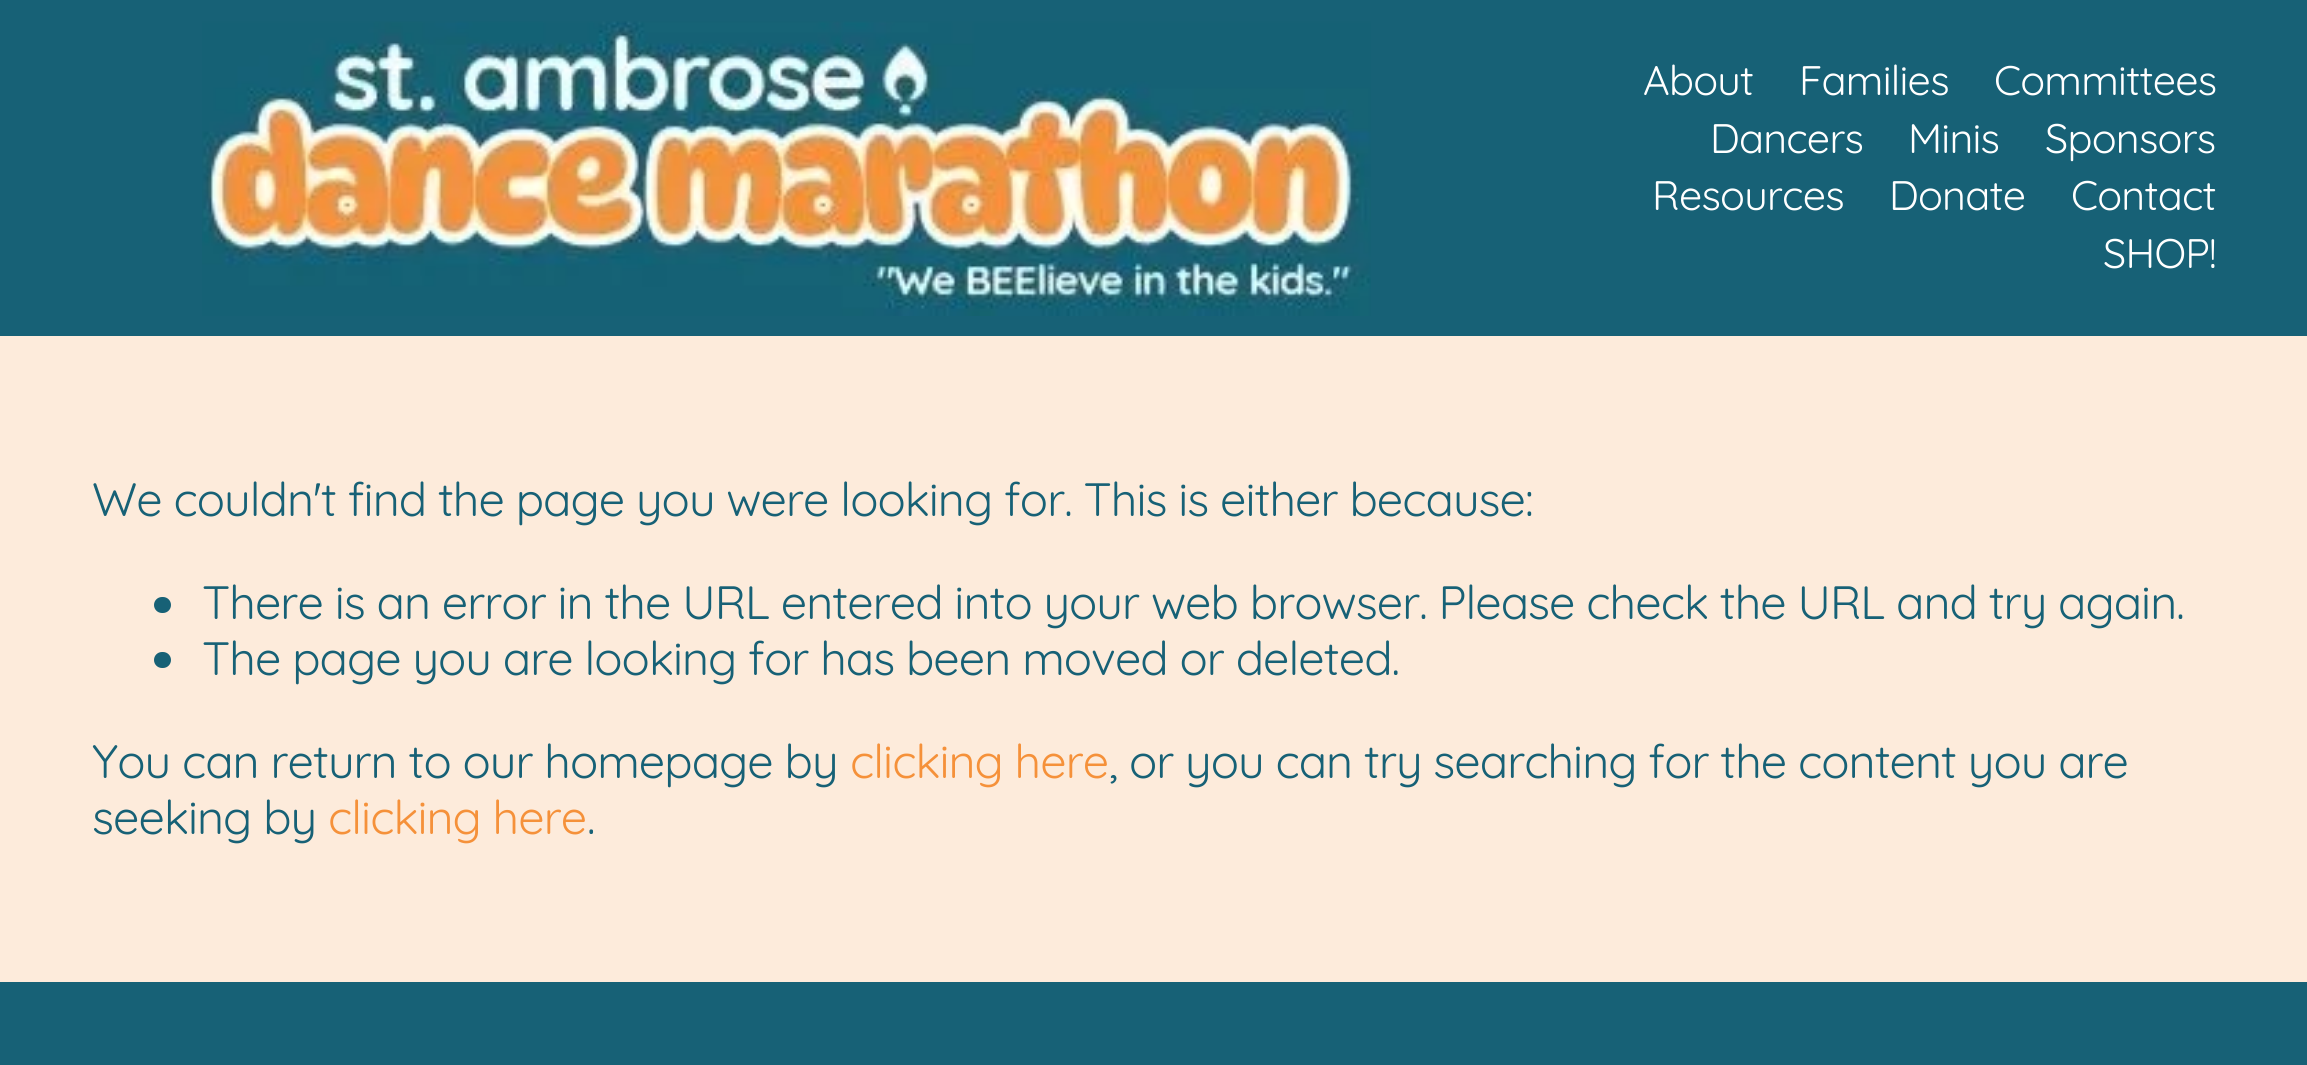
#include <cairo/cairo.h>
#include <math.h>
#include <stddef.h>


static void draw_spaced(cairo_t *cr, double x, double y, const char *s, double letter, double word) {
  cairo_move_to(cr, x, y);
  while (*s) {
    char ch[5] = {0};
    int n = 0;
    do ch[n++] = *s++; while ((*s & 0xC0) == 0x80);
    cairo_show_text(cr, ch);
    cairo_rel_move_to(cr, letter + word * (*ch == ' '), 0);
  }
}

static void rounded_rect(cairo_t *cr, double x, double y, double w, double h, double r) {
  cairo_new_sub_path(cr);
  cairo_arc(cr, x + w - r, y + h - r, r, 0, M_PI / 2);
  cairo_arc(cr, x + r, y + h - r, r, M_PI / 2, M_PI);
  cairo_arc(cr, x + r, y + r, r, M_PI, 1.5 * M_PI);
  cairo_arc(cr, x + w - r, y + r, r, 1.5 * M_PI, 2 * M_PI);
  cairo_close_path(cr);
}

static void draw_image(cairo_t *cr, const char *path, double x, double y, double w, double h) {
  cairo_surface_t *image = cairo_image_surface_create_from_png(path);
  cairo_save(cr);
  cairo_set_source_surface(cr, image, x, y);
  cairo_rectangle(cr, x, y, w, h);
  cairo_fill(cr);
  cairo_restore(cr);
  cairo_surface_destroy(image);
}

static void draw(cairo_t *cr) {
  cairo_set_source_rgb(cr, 253 / 255.0, 235 / 255.0, 219 / 255.0);
  cairo_paint(cr);
  cairo_set_source_rgb(cr, 23 / 255.0, 97 / 255.0, 118 / 255.0);
  cairo_rectangle(cr, 0, 0, 2307, 336);
  cairo_fill(cr);
  draw_image(cr, "images/1.png", 202, 21, 1169, 295);
  rounded_rect(cr, 154, 597, 17, 16, 8);
  cairo_fill(cr);
  rounded_rect(cr, 154, 652, 17, 16, 8);
  cairo_fill(cr);
  cairo_rectangle(cr, 0, 982, 2307, 83);
  cairo_fill(cr);
  cairo_select_font_face(cr, "Quicksand", CAIRO_FONT_SLANT_NORMAL, CAIRO_FONT_WEIGHT_NORMAL);
  cairo_set_font_size(cr, 41.25);
  cairo_set_source_rgb(cr, 1, 1, 1);
  draw_spaced(cr, 1643, 95, "About", -0.75, 0);
  draw_spaced(cr, 1799, 95, "Families", -0.75, 0);
  draw_spaced(cr, 1994, 95, "Committees", -0.75, 0);
  draw_spaced(cr, 1710, 153, "Dancers", -0.75, 0);
  draw_spaced(cr, 1908, 153, "Minis", -0.75, 0);
  draw_spaced(cr, 2045, 153, "Sponsors", -0.75, 0);
  draw_spaced(cr, 1652, 210, "Resources", -0.75, 0);
  draw_spaced(cr, 1889, 210, "Donate", -0.75, 0);
  draw_spaced(cr, 2071, 210, "Contact", -0.75, 0);
  draw_spaced(cr, 2103, 268, "SHOP!", -0.75, 0);
  cairo_set_font_size(cr, 46.75);
  cairo_set_source_rgb(cr, 23 / 255.0, 97 / 255.0, 118 / 255.0);
  draw_spaced(cr, 92, 516, "We couldn't find the page you were looking for. This is either because:", -0.95, 0);
  draw_spaced(cr, 202, 619, "There is an error in the URL entered into your web browser. Please check the URL and try again.", -0.95, 0);
  draw_spaced(cr, 202, 675, "The page you are looking for has been moved or deleted.", -0.95, 0);
  draw_spaced(cr, 92, 778, "You can return to our homepage by", -0.95, 0);
  cairo_set_source_rgb(cr, 245 / 255.0, 145 / 255.0, 58 / 255.0);
  draw_spaced(cr, 850, 778, "clicking here", -0.95, 0);
  cairo_set_source_rgb(cr, 23 / 255.0, 97 / 255.0, 118 / 255.0);
  draw_spaced(cr, 1109, 778, ", or you can try searching for the", -0.95, 0);
  draw_spaced(cr, 1798, 778, "content you are", -0.95, 0);
  draw_spaced(cr, 92, 834, "seeking by", -0.95, 0);
  cairo_set_source_rgb(cr, 245 / 255.0, 145 / 255.0, 58 / 255.0);
  draw_spaced(cr, 328, 834, "clicking here", -0.95, 0);
  cairo_set_source_rgb(cr, 23 / 255.0, 97 / 255.0, 118 / 255.0);
  draw_spaced(cr, 587, 834, ".", -0.95, 0);
}

int main(void) {
  cairo_surface_t *surface = cairo_image_surface_create(CAIRO_FORMAT_RGB24, 2307, 1065);
  cairo_t *cr = cairo_create(surface);
  cairo_font_options_t *options = cairo_font_options_create();
  cairo_font_options_set_hint_metrics(options, CAIRO_HINT_METRICS_OFF);
  cairo_font_options_set_hint_style(options, CAIRO_HINT_STYLE_NONE);
  cairo_set_font_options(cr, options);
  cairo_set_miter_limit(cr, 4);
  draw(cr);
  cairo_surface_write_to_png(surface, "out.png");
  cairo_font_options_destroy(options);
  cairo_destroy(cr);
  cairo_surface_destroy(surface);
  return 0;
}
